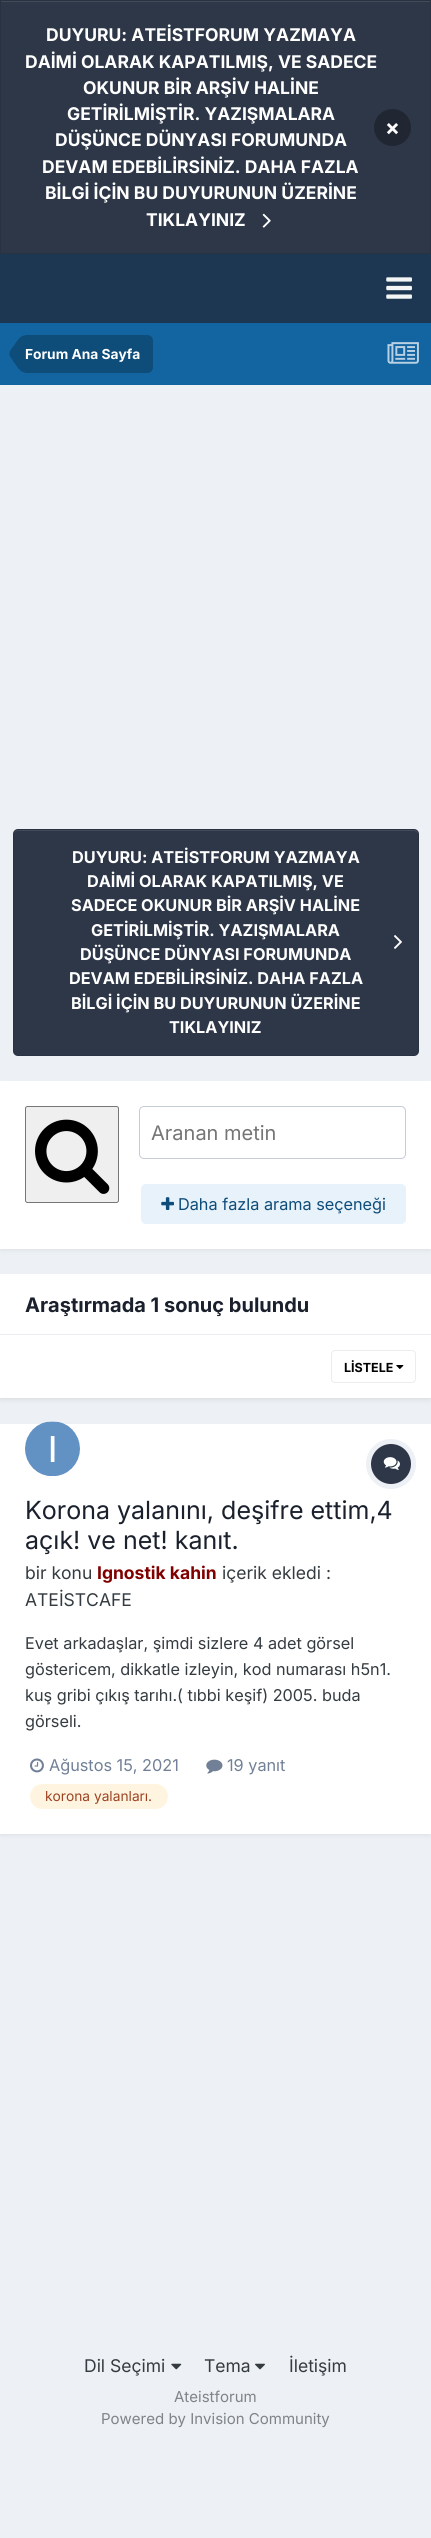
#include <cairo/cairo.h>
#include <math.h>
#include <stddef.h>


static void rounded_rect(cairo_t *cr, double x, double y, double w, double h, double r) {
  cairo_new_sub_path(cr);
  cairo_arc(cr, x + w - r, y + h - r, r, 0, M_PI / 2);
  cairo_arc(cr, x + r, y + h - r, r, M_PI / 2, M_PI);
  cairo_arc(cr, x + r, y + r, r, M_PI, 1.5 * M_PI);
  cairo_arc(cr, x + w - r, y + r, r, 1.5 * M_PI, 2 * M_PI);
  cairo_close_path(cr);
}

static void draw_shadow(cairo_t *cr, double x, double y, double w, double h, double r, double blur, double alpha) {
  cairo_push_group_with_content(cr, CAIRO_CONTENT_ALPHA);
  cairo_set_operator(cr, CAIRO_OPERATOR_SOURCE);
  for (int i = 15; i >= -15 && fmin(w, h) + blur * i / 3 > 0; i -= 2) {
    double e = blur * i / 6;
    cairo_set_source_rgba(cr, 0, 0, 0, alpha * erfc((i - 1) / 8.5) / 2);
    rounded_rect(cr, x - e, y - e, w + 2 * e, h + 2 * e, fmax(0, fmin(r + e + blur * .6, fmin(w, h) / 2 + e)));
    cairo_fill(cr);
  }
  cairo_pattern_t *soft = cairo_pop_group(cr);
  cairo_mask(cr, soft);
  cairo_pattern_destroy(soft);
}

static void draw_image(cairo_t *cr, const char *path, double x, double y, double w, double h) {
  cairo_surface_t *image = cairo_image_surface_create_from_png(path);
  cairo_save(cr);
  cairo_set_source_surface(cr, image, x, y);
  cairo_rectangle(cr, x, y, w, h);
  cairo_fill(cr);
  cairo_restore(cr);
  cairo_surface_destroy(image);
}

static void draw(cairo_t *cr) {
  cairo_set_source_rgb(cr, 237 / 255.0, 240 / 255.0, 244 / 255.0);
  cairo_paint(cr);
  cairo_set_source_rgb(cr, 45 / 255.0, 55 / 255.0, 72 / 255.0);
  cairo_rectangle(cr, 1, 2, 429, 251);
  cairo_fill(cr);
  cairo_set_source_rgb(cr, 66 / 255.0, 75 / 255.0, 90 / 255.0);
  cairo_rectangle(cr, 1, 1, 429, 1);
  cairo_fill(cr);
  cairo_rectangle(cr, 0.5, 0.5, 430, 253);
  cairo_set_source_rgb(cr, 41 / 255.0, 50 / 255.0, 65 / 255.0);
  cairo_set_line_width(cr, 1);
  cairo_stroke(cr);
  draw_image(cr, "images/1.png", 262, 213, 9, 15);
  cairo_set_source_rgb(cr, 32 / 255.0, 39 / 255.0, 50 / 255.0);
  cairo_arc(cr, 392.5, 127.5, 18.5, 0, 2 * M_PI);
  cairo_fill(cr);
  cairo_set_source_rgb(cr, 29 / 255.0, 54 / 255.0, 82 / 255.0);
  cairo_rectangle(cr, 0, 254, 431, 69);
  cairo_fill(cr);
  draw_image(cr, "images/2.png", 386, 277, 26, 22);
  cairo_set_source_rgb(cr, 18 / 255.0, 101 / 255.0, 161 / 255.0);
  cairo_rectangle(cr, 0, 323, 431, 62);
  cairo_fill(cr);
  cairo_set_source_rgb(cr, 14 / 255.0, 76 / 255.0, 121 / 255.0);
  cairo_new_path(cr);
  cairo_move_to(cr, 25, 335);
  cairo_line_to(cr, 147, 335);
  cairo_curve_to(cr, 150.5, 335, 153, 337.5, 153, 341);
  cairo_line_to(cr, 153, 367);
  cairo_curve_to(cr, 153, 370.5, 150.5, 373, 147, 373);
  cairo_line_to(cr, 25, 373);
  cairo_close_path(cr);
  cairo_fill(cr);
  cairo_new_path(cr);
  cairo_move_to(cr, 25, 372.5);
  cairo_curve_to(cr, 19.5, 372.5, 15.5, 364, 12.5, 360);
  cairo_curve_to(cr, 11.5, 358.5, 9, 356, 9.5, 354);
  cairo_line_to(cr, 25, 354);
  cairo_close_path(cr);
  cairo_move_to(cr, 25, 335.5);
  cairo_line_to(cr, 25, 354);
  cairo_line_to(cr, 9.5, 354);
  cairo_curve_to(cr, 9.5, 350.5, 12, 348, 14, 345.5);
  cairo_curve_to(cr, 16.5, 342, 19.5, 335.5, 25, 335.5);
  cairo_close_path(cr);
  cairo_fill(cr);
  draw_image(cr, "images/3.png", 387, 342, 32, 22);
  cairo_set_source_rgb(cr, 45 / 255.0, 55 / 255.0, 72 / 255.0);
  rounded_rect(cr, 13, 829, 406, 227, 5);
  cairo_fill(cr);
  cairo_set_source_rgb(cr, 66 / 255.0, 75 / 255.0, 90 / 255.0);
  cairo_new_path(cr);
  cairo_move_to(cr, 18, 831);
  cairo_line_to(cr, 414, 831);
  cairo_curve_to(cr, 416, 831, 418, 833, 418, 835);
  cairo_curve_to(cr, 418, 832, 417, 830, 414, 830);
  cairo_line_to(cr, 18, 830);
  cairo_curve_to(cr, 15, 830, 14, 832, 14, 835);
  cairo_curve_to(cr, 14, 833, 15, 831, 18, 831);
  cairo_close_path(cr);
  cairo_fill(cr);
  rounded_rect(cr, 13.5, 829.5, 405, 226, 4.5);
  cairo_set_source_rgba(cr, 0, 0, 0, 0.1);
  cairo_stroke(cr);
  draw_image(cr, "images/4.png", 394, 935, 8, 14);
  cairo_set_source_rgb(cr, 45 / 255.0, 55 / 255.0, 72 / 255.0);
  draw_shadow(cr, 1, 1085, 429, 165, 0, 2.5, 0.1);
  cairo_set_source_rgb(cr, 1, 1, 1);
  cairo_rectangle(cr, 0, 1081, 431, 168);
  cairo_fill(cr);
  cairo_set_source_rgb(cr, 239 / 255.0, 239 / 255.0, 239 / 255.0);
  rounded_rect(cr, 25.5, 1106.5, 93, 96, 2);
  cairo_fill_preserve(cr);
  cairo_set_source_rgb(cr, 118 / 255.0, 118 / 255.0, 118 / 255.0);
  cairo_stroke(cr);
  draw_image(cr, "images/5.png", 35, 1119, 75, 75);
  rounded_rect(cr, 139.5, 1106.5, 266, 52, 4.5);
  cairo_set_source_rgb(cr, 198 / 255.0, 204 / 255.0, 213 / 255.0);
  cairo_stroke(cr);
  cairo_set_source_rgb(cr, 232 / 255.0, 242 / 255.0, 250 / 255.0);
  rounded_rect(cr, 141, 1184, 265, 40, 5);
  cairo_fill(cr);
  draw_image(cr, "images/6.png", 161, 1197, 13, 13);
  cairo_set_source_rgb(cr, 45 / 255.0, 55 / 255.0, 72 / 255.0);
  draw_shadow(cr, 1, 1278, 429, 122, 0, 2.5, 0.1);
  cairo_set_source_rgb(cr, 1, 1, 1);
  cairo_rectangle(cr, 0, 1274, 431, 124);
  cairo_fill(cr);
  cairo_set_source_rgb(cr, 234 / 255.0, 236 / 255.0, 239 / 255.0);
  cairo_rectangle(cr, 0, 1334, 431, 1);
  cairo_fill(cr);
  cairo_set_source_rgb(cr, 225 / 255.0, 226 / 255.0, 227 / 255.0);
  cairo_rectangle(cr, 0, 1398, 431, 1);
  cairo_fill(cr);
  draw_image(cr, "images/7.png", 396, 1365, 8, 4);
  rounded_rect(cr, 331.5, 1350.5, 84, 32, 3.5);
  cairo_set_source_rgb(cr, 235 / 255.0, 236 / 255.0, 236 / 255.0);
  cairo_stroke(cr);
  cairo_set_source_rgb(cr, 45 / 255.0, 55 / 255.0, 72 / 255.0);
  draw_shadow(cr, 1, 1428, 429, 407, 0, 2.5, 0.1);
  cairo_set_source_rgb(cr, 1, 1, 1);
  cairo_rectangle(cr, 0, 1424, 431, 410);
  cairo_fill(cr);
  cairo_arc(cr, 52.5, 1448.5, 27.5, 0, 2 * M_PI);
  cairo_fill(cr);
  draw_image(cr, "images/8.png", 25, 1421, 55, 55);
  cairo_arc(cr, 391, 1464, 22.5, 0, 2 * M_PI);
  cairo_set_source_rgb(cr, 237 / 255.0, 240 / 255.0, 244 / 255.0);
  cairo_set_line_width(cr, 5);
  cairo_stroke(cr);
  cairo_set_source_rgb(cr, 45 / 255.0, 55 / 255.0, 72 / 255.0);
  cairo_arc(cr, 391, 1464, 20, 0, 2 * M_PI);
  cairo_fill(cr);
  draw_image(cr, "images/9.png", 383, 1457, 17, 13);
  draw_image(cr, "images/10.png", 30, 1758, 14, 15);
  draw_image(cr, "images/11.png", 206, 1759, 17, 15);
  cairo_set_source_rgb(cr, 1, 244 / 255.0, 223 / 255.0);
  rounded_rect(cr, 30, 1784, 138, 25, 12.5);
  cairo_fill(cr);
  draw_image(cr, "images/12.png", 171, 2363, 11, 7);
  draw_image(cr, "images/13.png", 255, 2363, 10, 7);
  cairo_select_font_face(cr, "Inter", CAIRO_FONT_SLANT_NORMAL, CAIRO_FONT_WEIGHT_BOLD);
  cairo_set_font_size(cr, 17.5);
  cairo_set_source_rgb(cr, 1, 1, 1);
  cairo_move_to(cr, 46, 41);
  cairo_show_text(cr, "DUYURU: ATEİSTFORUM YAZMAYA");
  cairo_move_to(cr, 25, 68);
  cairo_show_text(cr, "DAİMİ OLARAK KAPATILMIŞ, VE SADECE");
  cairo_move_to(cr, 83, 94);
  cairo_show_text(cr, "OKUNUR BİR ARŞİV HALİNE");
  cairo_move_to(cr, 67, 120);
  cairo_show_text(cr, "GETİRİLMİŞTİR. YAZIŞMALARA");
  cairo_move_to(cr, 55, 146);
  cairo_show_text(cr, "DÜŞÜNCE DÜNYASI FORUMUNDA");
  cairo_move_to(cr, 42, 173);
  cairo_show_text(cr, "DEVAM EDEBİLİRSİNİZ. DAHA FAZLA");
  cairo_move_to(cr, 45, 199);
  cairo_show_text(cr, "BİLGİ İÇİN BU DUYURUNUN ÜZERİNE");
  cairo_move_to(cr, 146, 226);
  cairo_show_text(cr, "TIKLAYINIZ");
  cairo_set_font_size(cr, 22);
  cairo_move_to(cr, 385, 135);
  cairo_show_text(cr, "×");
  cairo_set_font_size(cr, 13.75);
  cairo_move_to(cr, 25, 359);
  cairo_show_text(cr, "Forum Ana Sayfa");
  cairo_set_font_size(cr, 16.25);
  cairo_move_to(cr, 72, 863);
  cairo_show_text(cr, "DUYURU: ATEİSTFORUM YAZMAYA");
  cairo_move_to(cr, 87, 887);
  cairo_show_text(cr, "DAİMİ OLARAK KAPATILMIŞ, VE");
  cairo_move_to(cr, 71, 911);
  cairo_show_text(cr, "SADECE OKUNUR BİR ARŞİV HALİNE");
  cairo_move_to(cr, 91, 936);
  cairo_show_text(cr, "GETİRİLMİŞTİR. YAZIŞMALARA");
  cairo_move_to(cr, 80, 960);
  cairo_show_text(cr, "DÜŞÜNCE DÜNYASI FORUMUNDA");
  cairo_move_to(cr, 69, 984);
  cairo_show_text(cr, "DEVAM EDEBİLİRSİNİZ. DAHA FAZLA");
  cairo_move_to(cr, 71, 1009);
  cairo_show_text(cr, "BİLGİ İÇİN BU DUYURUNUN ÜZERİNE");
  cairo_move_to(cr, 169, 1033);
  cairo_show_text(cr, "TIKLAYINIZ");
  cairo_select_font_face(cr, "Inter", CAIRO_FONT_SLANT_NORMAL, CAIRO_FONT_WEIGHT_NORMAL);
  cairo_set_font_size(cr, 20);
  cairo_set_source_rgb(cr, 117 / 255.0, 117 / 255.0, 117 / 255.0);
  cairo_move_to(cr, 151, 1140);
  cairo_show_text(cr, "Aranan metin");
  cairo_set_font_size(cr, 16.25);
  cairo_set_source_rgb(cr, 14 / 255.0, 76 / 255.0, 121 / 255.0);
  cairo_move_to(cr, 178, 1210);
  cairo_show_text(cr, "Daha fazla arama seçeneği");
  cairo_select_font_face(cr, "Inter", CAIRO_FONT_SLANT_NORMAL, CAIRO_FONT_WEIGHT_BOLD);
  cairo_set_font_size(cr, 20);
  cairo_set_source_rgb(cr, 26 / 255.0, 32 / 255.0, 44 / 255.0);
  cairo_move_to(cr, 25, 1312);
  cairo_show_text(cr, "Araştırmada 1 sonuç bulundu");
  cairo_set_font_size(cr, 12.5);
  cairo_set_source_rgb(cr, 0, 0, 0);
  cairo_move_to(cr, 344, 1372);
  cairo_show_text(cr, "LİSTELE");
  cairo_select_font_face(cr, "Inter", CAIRO_FONT_SLANT_NORMAL, CAIRO_FONT_WEIGHT_NORMAL);
  cairo_set_font_size(cr, 25);
  cairo_set_source_rgb(cr, 26 / 255.0, 32 / 255.0, 44 / 255.0);
  cairo_move_to(cr, 25, 1519);
  cairo_show_text(cr, "Korona yalanını, deşifre ettim,4");
  cairo_move_to(cr, 25, 1549);
  cairo_show_text(cr, "açık! ve net! kanıt.");
  cairo_set_font_size(cr, 17.5);
  cairo_set_source_rgb(cr, 53 / 255.0, 60 / 255.0, 65 / 255.0);
  cairo_move_to(cr, 25, 1579);
  cairo_show_text(cr, "bir konu");
  cairo_select_font_face(cr, "Inter", CAIRO_FONT_SLANT_NORMAL, CAIRO_FONT_WEIGHT_BOLD);
  cairo_set_source_rgb(cr, 128 / 255.0, 0, 0);
  cairo_move_to(cr, 97, 1579);
  cairo_show_text(cr, "Ignostik kahin");
  cairo_select_font_face(cr, "Inter", CAIRO_FONT_SLANT_NORMAL, CAIRO_FONT_WEIGHT_NORMAL);
  cairo_set_source_rgb(cr, 53 / 255.0, 60 / 255.0, 65 / 255.0);
  cairo_move_to(cr, 222, 1579);
  cairo_show_text(cr, "içerik ekledi :");
  cairo_move_to(cr, 25, 1606);
  cairo_show_text(cr, "ATEİSTCAFE");
  cairo_set_font_size(cr, 16.25);
  cairo_move_to(cr, 25, 1649);
  cairo_show_text(cr, "Evet arkadaşlar, şimdi sizlere 4 adet görsel");
  cairo_move_to(cr, 25, 1675);
  cairo_show_text(cr, "göstericem, dikkatle izleyin, kod numarası h5n1.");
  cairo_move_to(cr, 25, 1701);
  cairo_show_text(cr, "kuş gribi çıkış tarıhı.( tıbbi keşif) 2005. buda");
  cairo_move_to(cr, 25, 1727);
  cairo_show_text(cr, "görseli.");
  cairo_set_source_rgb(cr, 113 / 255.0, 128 / 255.0, 150 / 255.0);
  cairo_move_to(cr, 49, 1771);
  cairo_show_text(cr, "Ağustos 15, 2021");
  cairo_move_to(cr, 227, 1771);
  cairo_show_text(cr, "19 yanıt");
  cairo_set_font_size(cr, 13.75);
  cairo_set_source_rgb(cr, 156 / 255.0, 66 / 255.0, 33 / 255.0);
  cairo_move_to(cr, 45, 1801);
  cairo_show_text(cr, "korona yalanları.");
  cairo_set_font_size(cr, 17.5);
  cairo_set_source_rgb(cr, 53 / 255.0, 60 / 255.0, 65 / 255.0);
  cairo_move_to(cr, 84, 2372);
  cairo_show_text(cr, "Dil Seçimi");
  cairo_move_to(cr, 204, 2372);
  cairo_show_text(cr, "Tema");
  cairo_move_to(cr, 289, 2372);
  cairo_show_text(cr, "İletişim");
  cairo_set_font_size(cr, 15);
  cairo_set_source_rgb(cr, 127 / 255.0, 132 / 255.0, 137 / 255.0);
  cairo_move_to(cr, 174, 2402);
  cairo_show_text(cr, "Ateistforum");
  cairo_move_to(cr, 101, 2424);
  cairo_show_text(cr, "Powered by Invision Community");
}

int main(void) {
  cairo_surface_t *surface = cairo_image_surface_create(CAIRO_FORMAT_RGB24, 431, 2538);
  cairo_t *cr = cairo_create(surface);
  cairo_font_options_t *options = cairo_font_options_create();
  cairo_font_options_set_hint_metrics(options, CAIRO_HINT_METRICS_OFF);
  cairo_font_options_set_hint_style(options, CAIRO_HINT_STYLE_NONE);
  cairo_set_font_options(cr, options);
  cairo_set_miter_limit(cr, 4);
  draw(cr);
  cairo_surface_write_to_png(surface, "out.png");
  cairo_font_options_destroy(options);
  cairo_destroy(cr);
  cairo_surface_destroy(surface);
  return 0;
}
